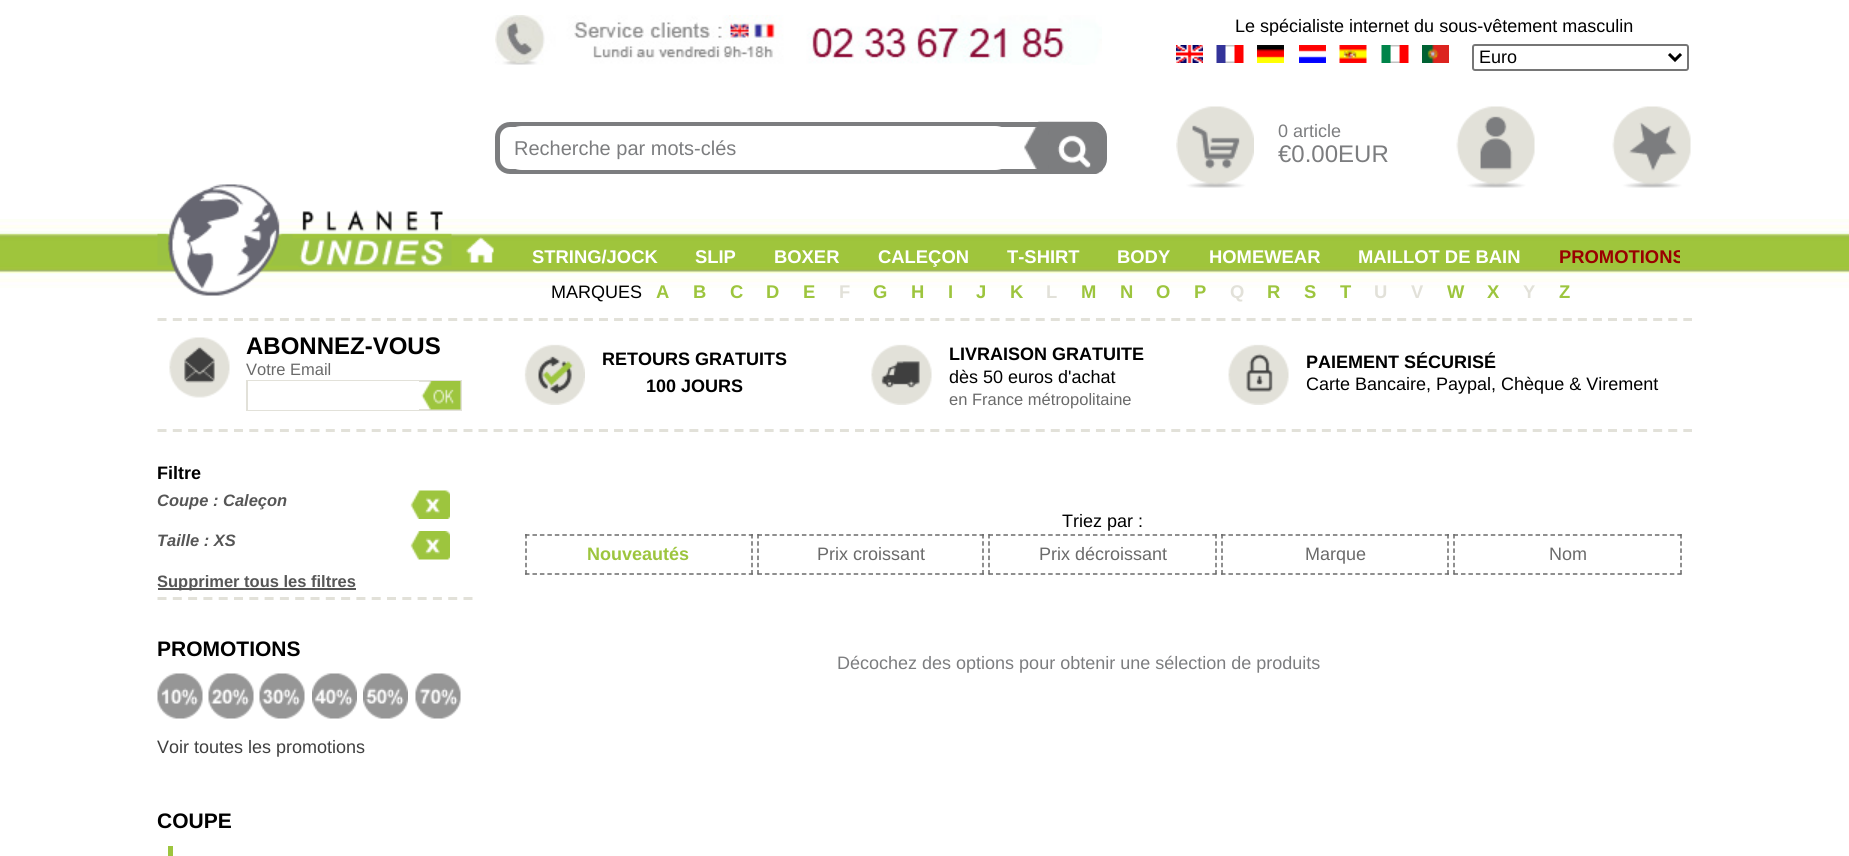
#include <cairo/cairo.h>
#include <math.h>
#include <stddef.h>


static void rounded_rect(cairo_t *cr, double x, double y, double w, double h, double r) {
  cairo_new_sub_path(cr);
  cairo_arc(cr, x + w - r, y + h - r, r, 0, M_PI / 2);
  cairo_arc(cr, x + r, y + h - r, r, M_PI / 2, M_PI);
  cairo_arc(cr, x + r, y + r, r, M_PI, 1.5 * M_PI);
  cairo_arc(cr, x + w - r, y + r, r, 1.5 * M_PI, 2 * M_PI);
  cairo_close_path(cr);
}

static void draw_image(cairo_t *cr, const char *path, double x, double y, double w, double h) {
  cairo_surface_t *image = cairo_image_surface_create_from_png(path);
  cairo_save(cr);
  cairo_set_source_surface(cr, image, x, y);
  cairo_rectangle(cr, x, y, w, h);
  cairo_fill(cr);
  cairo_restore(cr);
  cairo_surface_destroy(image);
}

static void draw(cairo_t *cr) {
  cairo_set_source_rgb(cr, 1, 1, 1);
  cairo_paint(cr);
  draw_image(cr, "images/1.png", 0, 219, 1849, 69);
  draw_image(cr, "images/2.png", 495, 15, 607, 50);
  draw_image(cr, "images/3.png", 1024, 121, 79, 53);
  rounded_rect(cr, 497.5, 124.5, 607, 47, 12.5);
  cairo_set_source_rgb(cr, 124 / 255.0, 125 / 255.0, 127 / 255.0);
  cairo_set_line_width(cr, 5);
  cairo_stroke(cr);
  cairo_set_source_rgb(cr, 1, 1, 1);
  rounded_rect(cr, 500, 126, 517, 44, 22);
  cairo_fill(cr);
  draw_image(cr, "images/4.png", 1048, 130, 55, 44);
  draw_image(cr, "images/5.png", 1176, 45, 27, 18);
  draw_image(cr, "images/6.png", 1216, 45, 28, 18);
  draw_image(cr, "images/7.png", 1257, 45, 27, 18);
  draw_image(cr, "images/8.png", 1299, 45, 27, 18);
  draw_image(cr, "images/9.png", 1339, 45, 28, 18);
  draw_image(cr, "images/10.png", 1381, 45, 28, 18);
  draw_image(cr, "images/11.png", 1422, 45, 27, 18);
  rounded_rect(cr, 1473, 45, 215, 25, 2);
  cairo_set_source_rgb(cr, 118 / 255.0, 118 / 255.0, 118 / 255.0);
  cairo_set_line_width(cr, 2);
  cairo_stroke(cr);
  cairo_new_path(cr);
  cairo_move_to(cr, 1669, 54);
  cairo_line_to(cr, 1675, 60);
  cairo_line_to(cr, 1681, 54);
  cairo_set_source_rgb(cr, 0, 0, 0);
  cairo_set_line_width(cr, 3);
  cairo_stroke(cr);
  draw_image(cr, "images/12.png", 1176, 106, 78, 82);
  draw_image(cr, "images/13.png", 1456, 106, 79, 82);
  draw_image(cr, "images/14.png", 1612, 106, 79, 82);
  draw_image(cr, "images/15.png", 157, 184, 295, 112);
  draw_image(cr, "images/16.png", 466, 237, 28, 26);
  cairo_new_path(cr);
  cairo_move_to(cr, 157.5, 319.5);
  cairo_line_to(cr, 472.5, 319.5);
  cairo_set_source_rgb(cr, 226 / 255.0, 225 / 255.0, 217 / 255.0);
  cairo_set_dash(cr, (double[]){9, 6.3}, 2, 0);
  cairo_stroke(cr);
  cairo_new_path(cr);
  cairo_move_to(cr, 157.5, 430.5);
  cairo_line_to(cr, 472.5, 430.5);
  cairo_stroke(cr);
  draw_image(cr, "images/17.png", 169, 337, 61, 61);
  cairo_rectangle(cr, 247, 381, 214, 29);
  cairo_set_line_width(cr, 2);
  cairo_set_dash(cr, NULL, 0, 0);
  cairo_stroke(cr);
  cairo_set_source_rgb(cr, 1, 1, 1);
  cairo_rectangle(cr, 248, 381, 171, 29);
  cairo_fill(cr);
  draw_image(cr, "images/18.png", 421, 381, 40, 29);
  cairo_new_path(cr);
  cairo_move_to(cr, 157.5, 598.5);
  cairo_line_to(cr, 472.5, 598.5);
  cairo_set_source_rgb(cr, 226 / 255.0, 225 / 255.0, 217 / 255.0);
  cairo_set_line_width(cr, 3);
  cairo_set_dash(cr, (double[]){9, 6.3}, 2, 0);
  cairo_stroke(cr);
  draw_image(cr, "images/19.png", 410, 490, 40, 29);
  draw_image(cr, "images/20.png", 410, 531, 40, 29);
  cairo_set_source_rgb(cr, 86 / 255.0, 86 / 255.0, 86 / 255.0);
  cairo_rectangle(cr, 158, 588, 198, 2);
  cairo_fill(cr);
  draw_image(cr, "images/21.png", 157, 673, 46, 46);
  draw_image(cr, "images/22.png", 208, 673, 46, 46);
  draw_image(cr, "images/23.png", 259, 673, 46, 46);
  draw_image(cr, "images/24.png", 312, 673, 45, 46);
  draw_image(cr, "images/25.png", 363, 673, 45, 46);
  draw_image(cr, "images/26.png", 415, 673, 46, 46);
  cairo_set_source_rgb(cr, 157 / 255.0, 197 / 255.0, 62 / 255.0);
  cairo_rectangle(cr, 168, 846, 5, 10);
  cairo_fill(cr);
  cairo_new_path(cr);
  cairo_move_to(cr, 478.5, 319.5);
  cairo_line_to(cr, 1692, 319.5);
  cairo_set_source_rgb(cr, 226 / 255.0, 225 / 255.0, 217 / 255.0);
  cairo_set_dash(cr, (double[]){9, 6.06}, 2, 0);
  cairo_stroke(cr);
  cairo_new_path(cr);
  cairo_move_to(cr, 478.5, 430.5);
  cairo_line_to(cr, 1692, 430.5);
  cairo_stroke(cr);
  draw_image(cr, "images/27.png", 524, 344, 61, 61);
  draw_image(cr, "images/28.png", 871, 344, 61, 61);
  draw_image(cr, "images/29.png", 1228, 344, 61, 61);
  cairo_new_path(cr);
  cairo_move_to(cr, 525, 535);
  cairo_line_to(cr, 753, 535);
  cairo_set_source_rgb(cr, 106 / 255.0, 106 / 255.0, 106 / 255.0);
  cairo_set_line_width(cr, 1.5);
  cairo_set_dash(cr, (double[]){4.5, 2.96}, 2, 0);
  cairo_stroke(cr);
  cairo_new_path(cr);
  cairo_move_to(cr, 752, 534);
  cairo_line_to(cr, 752, 574.5);
  cairo_set_dash(cr, (double[]){4.5, 2.7}, 2, 0);
  cairo_stroke(cr);
  cairo_new_path(cr);
  cairo_move_to(cr, 525, 574);
  cairo_line_to(cr, 753, 574);
  cairo_set_dash(cr, (double[]){4.5, 2.96}, 2, 0);
  cairo_stroke(cr);
  cairo_new_path(cr);
  cairo_move_to(cr, 526, 534);
  cairo_line_to(cr, 526, 574.5);
  cairo_set_dash(cr, (double[]){4.5, 2.7}, 2, 0);
  cairo_stroke(cr);
  cairo_new_path(cr);
  cairo_move_to(cr, 757.5, 535);
  cairo_line_to(cr, 984, 535);
  cairo_set_dash(cr, (double[]){4.5, 2.9}, 2, 0);
  cairo_stroke(cr);
  cairo_new_path(cr);
  cairo_move_to(cr, 983, 534);
  cairo_line_to(cr, 983, 574.5);
  cairo_set_dash(cr, (double[]){4.5, 2.7}, 2, 0);
  cairo_stroke(cr);
  cairo_new_path(cr);
  cairo_move_to(cr, 757.5, 574);
  cairo_line_to(cr, 984, 574);
  cairo_set_dash(cr, (double[]){4.5, 2.9}, 2, 0);
  cairo_stroke(cr);
  cairo_new_path(cr);
  cairo_move_to(cr, 758, 534);
  cairo_line_to(cr, 758, 574.5);
  cairo_set_dash(cr, (double[]){4.5, 2.7}, 2, 0);
  cairo_stroke(cr);
  cairo_new_path(cr);
  cairo_move_to(cr, 988.5, 535);
  cairo_line_to(cr, 1216.5, 535);
  cairo_set_dash(cr, (double[]){4.5, 2.96}, 2, 0);
  cairo_stroke(cr);
  cairo_new_path(cr);
  cairo_move_to(cr, 1216, 534);
  cairo_line_to(cr, 1216, 574.5);
  cairo_set_dash(cr, (double[]){4.5, 2.7}, 2, 0);
  cairo_stroke(cr);
  cairo_new_path(cr);
  cairo_move_to(cr, 988.5, 574);
  cairo_line_to(cr, 1216.5, 574);
  cairo_set_dash(cr, (double[]){4.5, 2.96}, 2, 0);
  cairo_stroke(cr);
  cairo_new_path(cr);
  cairo_move_to(cr, 989, 534);
  cairo_line_to(cr, 989, 574.5);
  cairo_set_dash(cr, (double[]){4.5, 2.7}, 2, 0);
  cairo_stroke(cr);
  cairo_new_path(cr);
  cairo_move_to(cr, 1221, 535);
  cairo_line_to(cr, 1449, 535);
  cairo_set_dash(cr, (double[]){4.5, 2.96}, 2, 0);
  cairo_stroke(cr);
  cairo_new_path(cr);
  cairo_move_to(cr, 1448, 534);
  cairo_line_to(cr, 1448, 574.5);
  cairo_set_dash(cr, (double[]){4.5, 2.7}, 2, 0);
  cairo_stroke(cr);
  cairo_new_path(cr);
  cairo_move_to(cr, 1221, 574);
  cairo_line_to(cr, 1449, 574);
  cairo_set_dash(cr, (double[]){4.5, 2.96}, 2, 0);
  cairo_stroke(cr);
  cairo_new_path(cr);
  cairo_move_to(cr, 1222, 534);
  cairo_line_to(cr, 1222, 574.5);
  cairo_set_dash(cr, (double[]){4.5, 2.7}, 2, 0);
  cairo_stroke(cr);
  cairo_new_path(cr);
  cairo_move_to(cr, 1453.5, 535);
  cairo_line_to(cr, 1681.5, 535);
  cairo_set_dash(cr, (double[]){4.5, 2.96}, 2, 0);
  cairo_stroke(cr);
  cairo_new_path(cr);
  cairo_move_to(cr, 1681, 534);
  cairo_line_to(cr, 1681, 574.5);
  cairo_set_dash(cr, (double[]){4.5, 2.7}, 2, 0);
  cairo_stroke(cr);
  cairo_new_path(cr);
  cairo_move_to(cr, 1453.5, 574);
  cairo_line_to(cr, 1681.5, 574);
  cairo_set_dash(cr, (double[]){4.5, 2.96}, 2, 0);
  cairo_stroke(cr);
  cairo_new_path(cr);
  cairo_move_to(cr, 1454, 534);
  cairo_line_to(cr, 1454, 574.5);
  cairo_set_dash(cr, (double[]){4.5, 2.7}, 2, 0);
  cairo_stroke(cr);
  cairo_select_font_face(cr, "Liberation Sans", CAIRO_FONT_SLANT_NORMAL, CAIRO_FONT_WEIGHT_NORMAL);
  cairo_set_font_size(cr, 20);
  cairo_set_source_rgb(cr, 124 / 255.0, 125 / 255.0, 127 / 255.0);
  cairo_move_to(cr, 514, 155);
  cairo_show_text(cr, "Recherche par mots-clés");
  cairo_set_font_size(cr, 18);
  cairo_set_source_rgb(cr, 0, 0, 0);
  cairo_move_to(cr, 1235, 32);
  cairo_show_text(cr, "Le spécialiste internet du sous-vêtement masculin");
  cairo_move_to(cr, 1479, 63);
  cairo_show_text(cr, "Euro");
  cairo_set_source_rgb(cr, 124 / 255.0, 125 / 255.0, 127 / 255.0);
  cairo_move_to(cr, 1278, 137);
  cairo_show_text(cr, "0 article");
  cairo_set_font_size(cr, 24);
  cairo_move_to(cr, 1278, 162);
  cairo_show_text(cr, "€0.00EUR");
  cairo_select_font_face(cr, "Liberation Sans", CAIRO_FONT_SLANT_NORMAL, CAIRO_FONT_WEIGHT_BOLD);
  cairo_set_font_size(cr, 18.4);
  cairo_set_source_rgb(cr, 1, 1, 1);
  cairo_move_to(cr, 532, 263);
  cairo_show_text(cr, "STRING/JOCK");
  cairo_move_to(cr, 695, 263);
  cairo_show_text(cr, "SLIP");
  cairo_move_to(cr, 774, 263);
  cairo_show_text(cr, "BOXER");
  cairo_move_to(cr, 878, 263);
  cairo_show_text(cr, "CALEÇON");
  cairo_move_to(cr, 1007, 263);
  cairo_show_text(cr, "T-SHIRT");
  cairo_move_to(cr, 1117, 263);
  cairo_show_text(cr, "BODY");
  cairo_move_to(cr, 1209, 263);
  cairo_show_text(cr, "HOMEWEAR");
  cairo_move_to(cr, 1358, 263);
  cairo_show_text(cr, "MAILLOT DE BAIN");
  cairo_save(cr);
  cairo_rectangle(cr, 452, 234, 1228, 300);
  cairo_clip(cr);
  cairo_set_source_rgb(cr, 153 / 255.0, 0, 0);
  cairo_move_to(cr, 1559, 263);
  cairo_show_text(cr, "PROMOTIONS");
  cairo_restore(cr);
  cairo_select_font_face(cr, "Liberation Sans", CAIRO_FONT_SLANT_NORMAL, CAIRO_FONT_WEIGHT_NORMAL);
  cairo_set_font_size(cr, 18);
  cairo_set_source_rgb(cr, 0, 0, 0);
  cairo_move_to(cr, 551, 298);
  cairo_show_text(cr, "MARQUES");
  cairo_select_font_face(cr, "Liberation Sans", CAIRO_FONT_SLANT_NORMAL, CAIRO_FONT_WEIGHT_BOLD);
  cairo_set_font_size(cr, 18.4);
  cairo_set_source_rgb(cr, 157 / 255.0, 197 / 255.0, 62 / 255.0);
  cairo_move_to(cr, 656, 298);
  cairo_show_text(cr, "A");
  cairo_move_to(cr, 693, 298);
  cairo_show_text(cr, "B");
  cairo_move_to(cr, 730, 298);
  cairo_show_text(cr, "C");
  cairo_move_to(cr, 766, 298);
  cairo_show_text(cr, "D");
  cairo_move_to(cr, 803, 298);
  cairo_show_text(cr, "E");
  cairo_set_source_rgb(cr, 226 / 255.0, 225 / 255.0, 217 / 255.0);
  cairo_move_to(cr, 839, 298);
  cairo_show_text(cr, "F");
  cairo_set_source_rgb(cr, 157 / 255.0, 197 / 255.0, 62 / 255.0);
  cairo_move_to(cr, 873, 298);
  cairo_show_text(cr, "G");
  cairo_move_to(cr, 911, 298);
  cairo_show_text(cr, "H");
  cairo_move_to(cr, 948, 298);
  cairo_show_text(cr, "I");
  cairo_move_to(cr, 976, 298);
  cairo_show_text(cr, "J");
  cairo_move_to(cr, 1010, 298);
  cairo_show_text(cr, "K");
  cairo_set_source_rgb(cr, 226 / 255.0, 225 / 255.0, 217 / 255.0);
  cairo_move_to(cr, 1046, 298);
  cairo_show_text(cr, "L");
  cairo_set_source_rgb(cr, 157 / 255.0, 197 / 255.0, 62 / 255.0);
  cairo_move_to(cr, 1081, 298);
  cairo_show_text(cr, "M");
  cairo_move_to(cr, 1120, 298);
  cairo_show_text(cr, "N");
  cairo_move_to(cr, 1156, 298);
  cairo_show_text(cr, "O");
  cairo_move_to(cr, 1194, 298);
  cairo_show_text(cr, "P");
  cairo_set_source_rgb(cr, 226 / 255.0, 225 / 255.0, 217 / 255.0);
  cairo_move_to(cr, 1230, 298);
  cairo_show_text(cr, "Q");
  cairo_set_source_rgb(cr, 157 / 255.0, 197 / 255.0, 62 / 255.0);
  cairo_move_to(cr, 1267, 298);
  cairo_show_text(cr, "R");
  cairo_move_to(cr, 1304, 298);
  cairo_show_text(cr, "S");
  cairo_move_to(cr, 1340, 298);
  cairo_show_text(cr, "T");
  cairo_set_source_rgb(cr, 226 / 255.0, 225 / 255.0, 217 / 255.0);
  cairo_move_to(cr, 1374, 298);
  cairo_show_text(cr, "U");
  cairo_move_to(cr, 1411, 298);
  cairo_show_text(cr, "V");
  cairo_set_source_rgb(cr, 157 / 255.0, 197 / 255.0, 62 / 255.0);
  cairo_move_to(cr, 1447, 298);
  cairo_show_text(cr, "W");
  cairo_move_to(cr, 1487, 298);
  cairo_show_text(cr, "X");
  cairo_set_source_rgb(cr, 226 / 255.0, 225 / 255.0, 217 / 255.0);
  cairo_move_to(cr, 1523, 298);
  cairo_show_text(cr, "Y");
  cairo_set_source_rgb(cr, 157 / 255.0, 197 / 255.0, 62 / 255.0);
  cairo_move_to(cr, 1559, 298);
  cairo_show_text(cr, "Z");
  cairo_set_font_size(cr, 24);
  cairo_set_source_rgb(cr, 0, 0, 0);
  cairo_move_to(cr, 246, 354);
  cairo_show_text(cr, "ABONNEZ-VOUS");
  cairo_select_font_face(cr, "Liberation Sans", CAIRO_FONT_SLANT_NORMAL, CAIRO_FONT_WEIGHT_NORMAL);
  cairo_set_font_size(cr, 16.5);
  cairo_set_source_rgb(cr, 106 / 255.0, 106 / 255.0, 106 / 255.0);
  cairo_move_to(cr, 246, 375);
  cairo_show_text(cr, "Votre Email");
  cairo_select_font_face(cr, "Liberation Sans", CAIRO_FONT_SLANT_NORMAL, CAIRO_FONT_WEIGHT_BOLD);
  cairo_set_font_size(cr, 18);
  cairo_set_source_rgb(cr, 0, 0, 0);
  cairo_move_to(cr, 157, 479);
  cairo_show_text(cr, "Filtre");
  cairo_select_font_face(cr, "Liberation Sans", CAIRO_FONT_SLANT_ITALIC, CAIRO_FONT_WEIGHT_BOLD);
  cairo_set_font_size(cr, 16.5);
  cairo_set_source_rgb(cr, 86 / 255.0, 86 / 255.0, 86 / 255.0);
  cairo_move_to(cr, 157, 506);
  cairo_show_text(cr, "Coupe : Caleçon");
  cairo_move_to(cr, 157, 546);
  cairo_show_text(cr, "Taille : XS");
  cairo_select_font_face(cr, "Liberation Sans", CAIRO_FONT_SLANT_NORMAL, CAIRO_FONT_WEIGHT_BOLD);
  cairo_move_to(cr, 157, 587);
  cairo_show_text(cr, "Supprimer tous les filtres");
  cairo_set_font_size(cr, 21);
  cairo_set_source_rgb(cr, 0, 0, 0);
  cairo_move_to(cr, 157, 656);
  cairo_show_text(cr, "PROMOTIONS");
  cairo_select_font_face(cr, "Liberation Sans", CAIRO_FONT_SLANT_NORMAL, CAIRO_FONT_WEIGHT_NORMAL);
  cairo_set_font_size(cr, 18);
  cairo_set_source_rgb(cr, 63 / 255.0, 63 / 255.0, 63 / 255.0);
  cairo_move_to(cr, 157, 753);
  cairo_show_text(cr, "Voir toutes les promotions");
  cairo_select_font_face(cr, "Liberation Sans", CAIRO_FONT_SLANT_NORMAL, CAIRO_FONT_WEIGHT_BOLD);
  cairo_set_font_size(cr, 21);
  cairo_set_source_rgb(cr, 0, 0, 0);
  cairo_move_to(cr, 157, 828);
  cairo_show_text(cr, "COUPE");
  cairo_set_font_size(cr, 18);
  cairo_move_to(cr, 602, 365);
  cairo_show_text(cr, "RETOURS GRATUITS");
  cairo_move_to(cr, 646, 392);
  cairo_show_text(cr, "100 JOURS");
  cairo_move_to(cr, 949, 360);
  cairo_show_text(cr, "LIVRAISON GRATUITE");
  cairo_select_font_face(cr, "Liberation Sans", CAIRO_FONT_SLANT_NORMAL, CAIRO_FONT_WEIGHT_NORMAL);
  cairo_move_to(cr, 949, 383);
  cairo_show_text(cr, "dès 50 euros d'achat");
  cairo_set_font_size(cr, 16.5);
  cairo_set_source_rgb(cr, 106 / 255.0, 106 / 255.0, 106 / 255.0);
  cairo_move_to(cr, 949, 405);
  cairo_show_text(cr, "en France métropolitaine");
  cairo_select_font_face(cr, "Liberation Sans", CAIRO_FONT_SLANT_NORMAL, CAIRO_FONT_WEIGHT_BOLD);
  cairo_set_font_size(cr, 18);
  cairo_set_source_rgb(cr, 0, 0, 0);
  cairo_move_to(cr, 1306, 368);
  cairo_show_text(cr, "PAIEMENT SÉCURISÉ");
  cairo_select_font_face(cr, "Liberation Sans", CAIRO_FONT_SLANT_NORMAL, CAIRO_FONT_WEIGHT_NORMAL);
  cairo_move_to(cr, 1306, 390);
  cairo_show_text(cr, "Carte Bancaire, Paypal, Chèque & Virement");
  cairo_move_to(cr, 1062, 527);
  cairo_show_text(cr, "Triez par :");
  cairo_select_font_face(cr, "Liberation Sans", CAIRO_FONT_SLANT_NORMAL, CAIRO_FONT_WEIGHT_BOLD);
  cairo_set_source_rgb(cr, 157 / 255.0, 197 / 255.0, 62 / 255.0);
  cairo_move_to(cr, 587, 560);
  cairo_show_text(cr, "Nouveautés");
  cairo_select_font_face(cr, "Liberation Sans", CAIRO_FONT_SLANT_NORMAL, CAIRO_FONT_WEIGHT_NORMAL);
  cairo_set_source_rgb(cr, 106 / 255.0, 106 / 255.0, 106 / 255.0);
  cairo_move_to(cr, 817, 560);
  cairo_show_text(cr, "Prix croissant");
  cairo_move_to(cr, 1039, 560);
  cairo_show_text(cr, "Prix décroissant");
  cairo_move_to(cr, 1305, 560);
  cairo_show_text(cr, "Marque");
  cairo_move_to(cr, 1549, 560);
  cairo_show_text(cr, "Nom");
  cairo_set_source_rgb(cr, 124 / 255.0, 125 / 255.0, 127 / 255.0);
  cairo_move_to(cr, 837, 669);
  cairo_show_text(cr, "Décochez des options pour obtenir une sélection de produits");
}

int main(void) {
  cairo_surface_t *surface = cairo_image_surface_create(CAIRO_FORMAT_RGB24, 1849, 856);
  cairo_t *cr = cairo_create(surface);
  cairo_font_options_t *options = cairo_font_options_create();
  cairo_font_options_set_hint_metrics(options, CAIRO_HINT_METRICS_OFF);
  cairo_font_options_set_hint_style(options, CAIRO_HINT_STYLE_NONE);
  cairo_set_font_options(cr, options);
  cairo_set_miter_limit(cr, 4);
  draw(cr);
  cairo_surface_write_to_png(surface, "out.png");
  cairo_font_options_destroy(options);
  cairo_destroy(cr);
  cairo_surface_destroy(surface);
  return 0;
}
